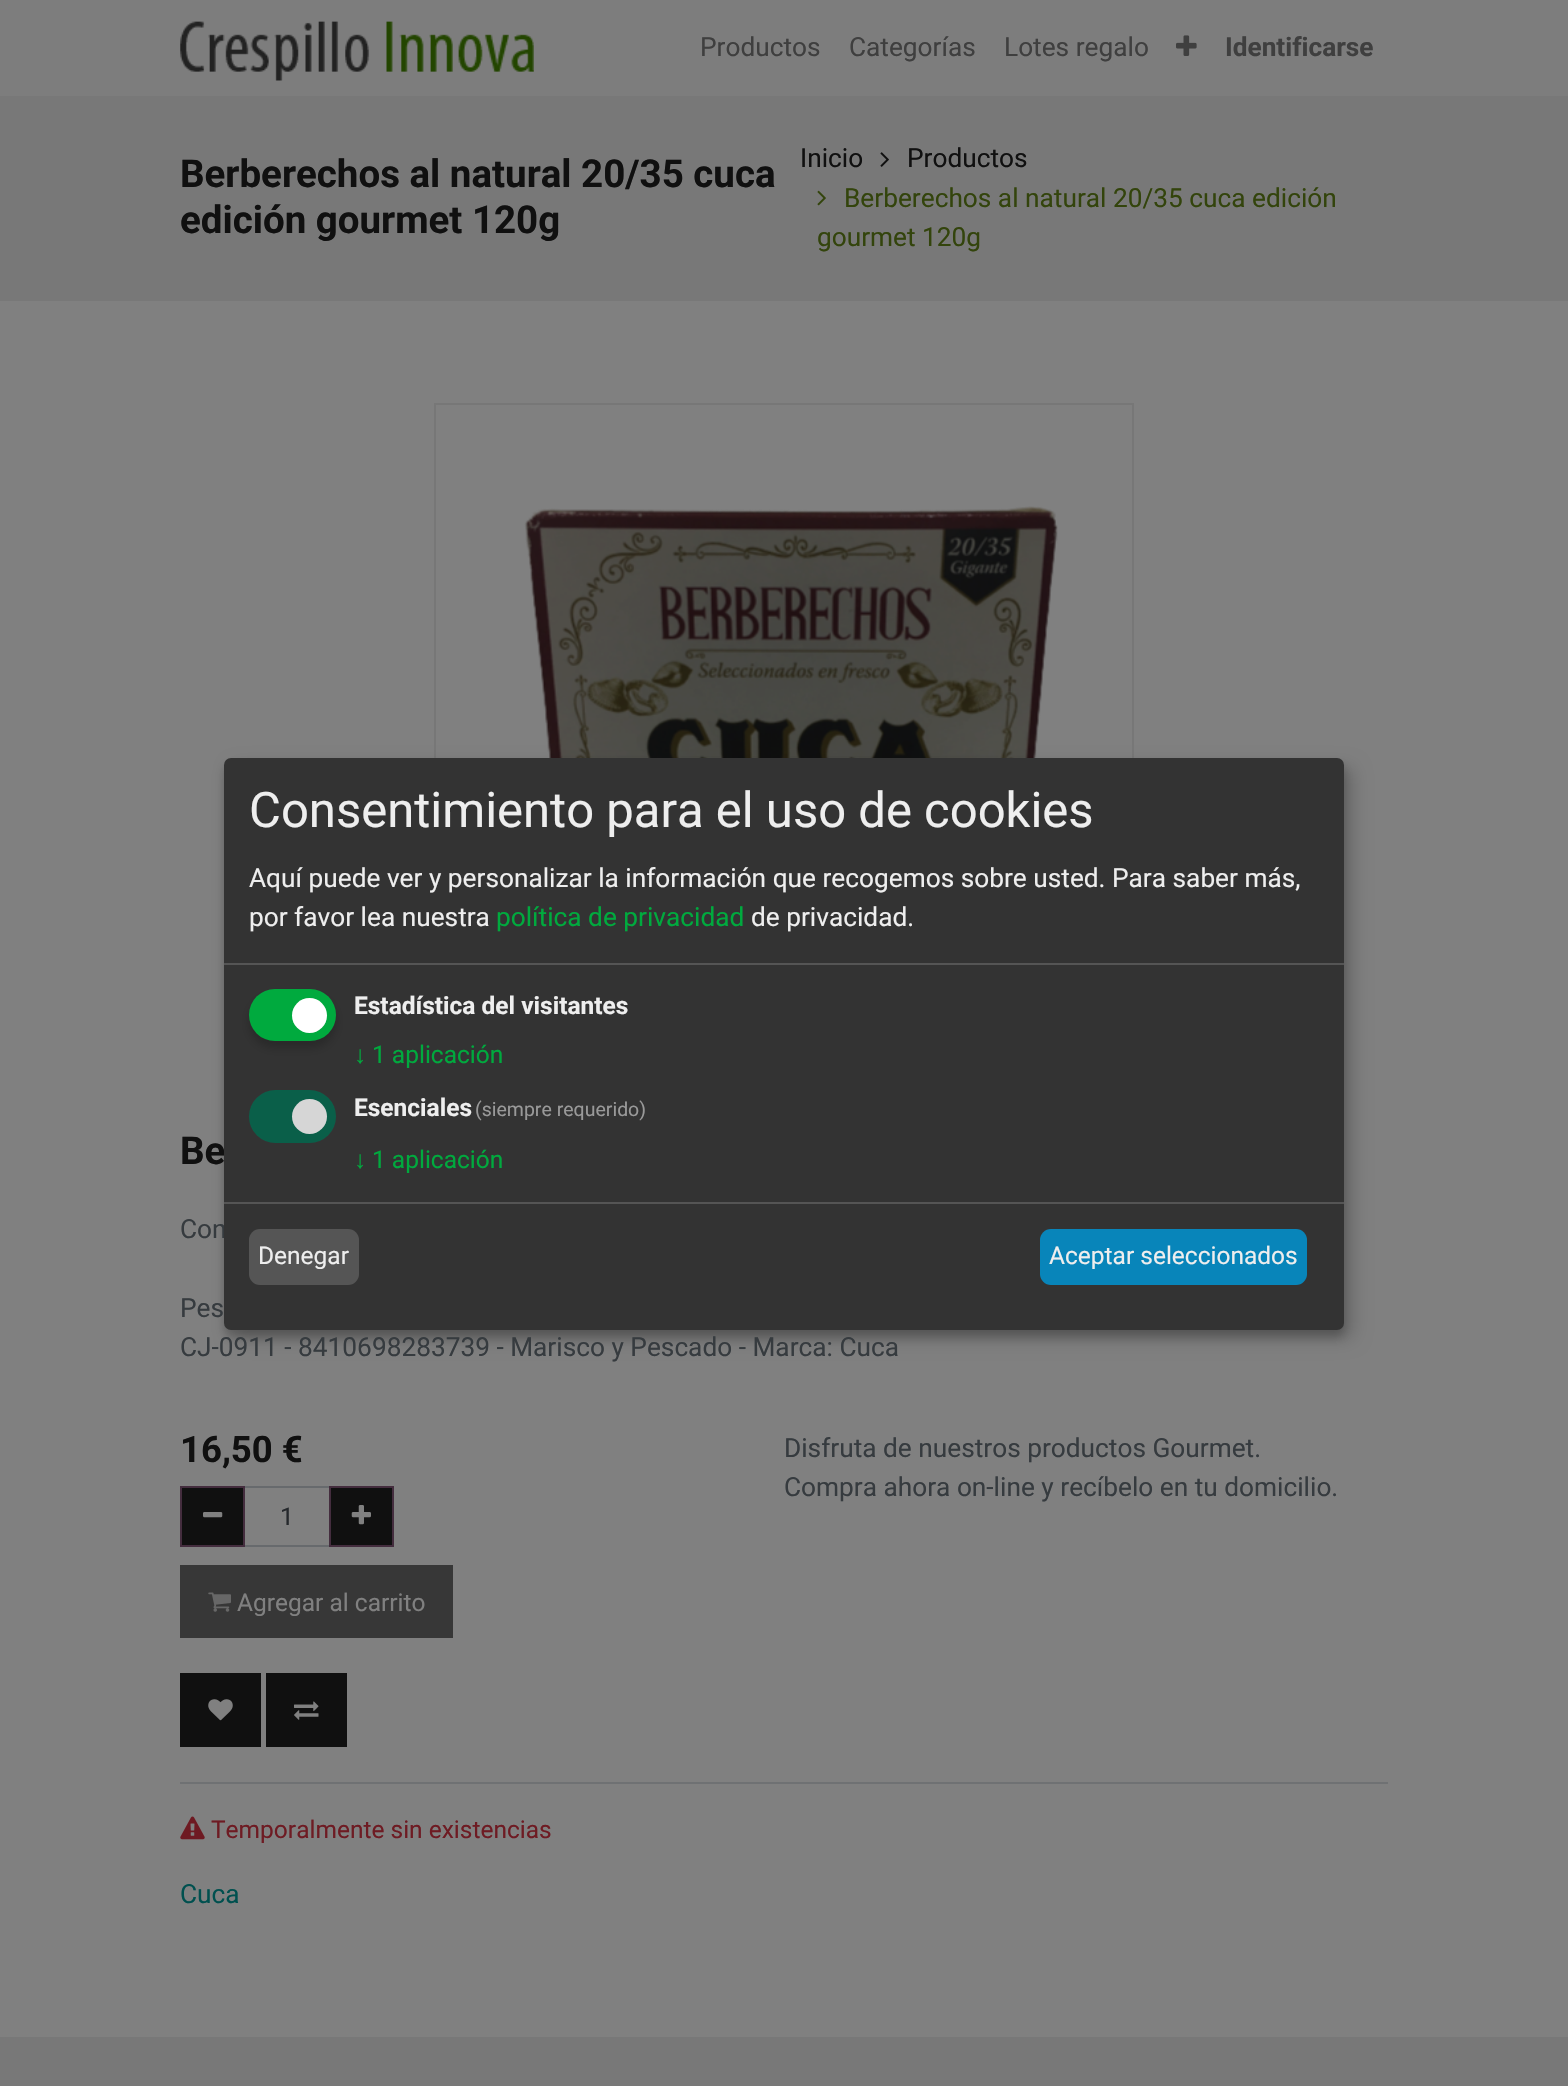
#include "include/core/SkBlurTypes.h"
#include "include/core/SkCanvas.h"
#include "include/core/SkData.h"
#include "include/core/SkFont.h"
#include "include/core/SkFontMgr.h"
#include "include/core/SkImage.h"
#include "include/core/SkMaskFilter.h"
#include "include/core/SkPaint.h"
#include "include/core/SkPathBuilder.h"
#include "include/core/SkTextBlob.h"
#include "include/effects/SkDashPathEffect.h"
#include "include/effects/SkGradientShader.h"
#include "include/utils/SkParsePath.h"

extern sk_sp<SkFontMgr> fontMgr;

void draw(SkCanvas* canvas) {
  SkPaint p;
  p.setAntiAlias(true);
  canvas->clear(SkColorSetRGB(128, 128, 128));
  p.setColor(SkColorSetRGB(125, 125, 125));
  canvas->drawRect(SkRect::MakeLTRB(0, 0, 1568, 96), p);
  canvas->drawImageRect(SkImages::DeferredFromEncodedData(SkData::MakeFromFileName("images/1.png")), SkRect::MakeLTRB(180, 21, 534, 81), SkSamplingOptions());
  canvas->drawImageRect(SkImages::DeferredFromEncodedData(SkData::MakeFromFileName("images/2.png")), SkRect::MakeLTRB(1176, 35, 1197, 56), SkSamplingOptions());
  p.setColor(SkColorSetRGB(120, 120, 120));
  canvas->drawRect(SkRect::MakeLTRB(0, 96, 1568, 301), p);
  canvas->drawImageRect(SkImages::DeferredFromEncodedData(SkData::MakeFromFileName("images/3.png")), SkRect::MakeLTRB(880, 152, 889, 167), SkSamplingOptions());
  canvas->drawImageRect(SkImages::DeferredFromEncodedData(SkData::MakeFromFileName("images/4.png")), SkRect::MakeLTRB(817, 190, 826, 206), SkSamplingOptions());
  p.setStyle(SkPaint::kStroke_Style);
  p.setStrokeWidth(2);
  p.setColor(SkColorSetRGB(119, 119, 119));
  canvas->drawRect(SkRect::MakeLTRB(435, 404, 1133, 1102), p);
  canvas->drawImageRect(SkImages::DeferredFromEncodedData(SkData::MakeFromFileName("images/5.png")), SkRect::MakeLTRB(524, 506, 1058, 758), SkSamplingOptions());
  p.setStyle(SkPaint::kFill_Style);
  p.setColor(SkColorSetRGB(111, 113, 115));
  canvas->drawRect(SkRect::MakeLTRB(180, 1782, 1388, 1784), p);
  p.setStyle(SkPaint::kStroke_Style);
  p.setColor(SkColorSetRGB(103, 106, 109));
  canvas->drawRect(SkRect::MakeLTRB(244, 1487, 330, 1546), p);
  p.setStyle(SkPaint::kFill_Style);
  p.setColor(SkColorSetRGB(16, 16, 16));
  canvas->drawRect(SkRect::MakeLTRB(181, 1487, 244, 1546), p);
  p.setStyle(SkPaint::kStroke_Style);
  p.setColor(SkColorSetRGB(68, 45, 62));
  canvas->drawRect(SkRect::MakeLTRB(181, 1487, 244, 1546), p);
  canvas->drawImageRect(SkImages::DeferredFromEncodedData(SkData::MakeFromFileName("images/6.png")), SkRect::MakeLTRB(203, 1512, 223, 1518), SkSamplingOptions());
  p.setStyle(SkPaint::kFill_Style);
  p.setColor(SkColorSetRGB(16, 16, 16));
  canvas->drawRect(SkRect::MakeLTRB(330, 1487, 393, 1546), p);
  p.setStyle(SkPaint::kStroke_Style);
  p.setColor(SkColorSetRGB(68, 45, 62));
  canvas->drawRect(SkRect::MakeLTRB(330, 1487, 393, 1546), p);
  canvas->drawImageRect(SkImages::DeferredFromEncodedData(SkData::MakeFromFileName("images/7.png")), SkRect::MakeLTRB(351, 1505, 371, 1525), SkSamplingOptions());
  p.setStyle(SkPaint::kFill_Style);
  p.setColor(SkColorSetRGB(55, 55, 55));
  canvas->drawRect(SkRect::MakeLTRB(180, 1565, 453, 1638), p);
  canvas->drawImageRect(SkImages::DeferredFromEncodedData(SkData::MakeFromFileName("images/8.png")), SkRect::MakeLTRB(208, 1592, 231, 1612), SkSamplingOptions());
  p.setColor(SkColorSetRGB(16, 16, 16));
  canvas->drawRect(SkRect::MakeLTRB(180, 1673, 261, 1747), p);
  canvas->drawImageRect(SkImages::DeferredFromEncodedData(SkData::MakeFromFileName("images/9.png")), SkRect::MakeLTRB(208, 1699, 233, 1721), SkSamplingOptions());
  canvas->drawRect(SkRect::MakeLTRB(266, 1673, 347, 1747), p);
  canvas->drawImageRect(SkImages::DeferredFromEncodedData(SkData::MakeFromFileName("images/10.png")), SkRect::MakeLTRB(294, 1701, 319, 1720), SkSamplingOptions());
  canvas->drawImageRect(SkImages::DeferredFromEncodedData(SkData::MakeFromFileName("images/11.png")), SkRect::MakeLTRB(180, 1816, 205, 1840), SkSamplingOptions());
  p.setColor(SkColorSetRGB(120, 120, 120));
  canvas->drawRect(SkRect::MakeLTRB(0, 2037, 1568, 2086), p);
  p.setColor(SkColorSetARGB(48, 0, 0, 0));
  p.setMaskFilter(SkMaskFilter::MakeBlur(kNormal_SkBlurStyle, 9));
  canvas->drawRoundRect(SkRect::MakeLTRB(233, 767, 1353, 1339), 7, 7, p);
  p.setMaskFilter(nullptr);
  p.setColor(SkColorSetARGB(51, 0, 0, 0));
  p.setMaskFilter(SkMaskFilter::MakeBlur(kNormal_SkBlurStyle, 5));
  canvas->drawRoundRect(SkRect::MakeLTRB(224, 765, 1344, 1337), 7, 7, p);
  p.setMaskFilter(nullptr);
  SkFont font1(fontMgr->matchFamilyStyle("Roboto", SkFontStyle::Normal()), 26.25f);
  font1.setSubpixel(true);
  p.setColor(SkColorSetRGB(63, 63, 63));
  canvas->drawString("Productos", 700, 56, font1, p);
  canvas->drawString("Categorías", 849, 56, font1, p);
  canvas->drawString("Lotes regalo", 1004, 56, font1, p);
  SkFont font2(fontMgr->matchFamilyStyle("Roboto", SkFontStyle::Bold()), 26.25f);
  font2.setSubpixel(true);
  canvas->drawString("Identificarse", 1225, 56, font2, p);
  SkFont font3(fontMgr->matchFamilyStyle("Roboto", SkFontStyle::Bold()), 38.5f);
  font3.setSubpixel(true);
  p.setColor(SkColorSetRGB(16, 16, 16));
  canvas->drawString("Berberechos al natural 20/35 cuca", 180, 187, font3, p);
  canvas->drawString("edición gourmet 120g", 180, 233, font3, p);
  canvas->drawString("Inicio", 800, 167, font1, p);
  canvas->drawString("Productos", 907, 167, font1, p);
  p.setColor(SkColorSetRGB(51, 68, 12));
  canvas->drawString("Berberechos al natural 20/35 cuca edición", 844, 207, font1, p);
  canvas->drawString("gourmet 120g", 817, 246, font1, p);
  p.setColor(SkColorSetRGB(16, 16, 16));
  canvas->drawString("Be", 180, 1164, font3, p);
  p.setColor(SkColorSetRGB(54, 59, 63));
  canvas->drawString("Con", 180, 1238, font1, p);
  canvas->drawString("Pes", 180, 1317, font1, p);
  canvas->drawString("CJ-0911 - 8410698283739 - Marisco y Pescado - Marca: Cuca", 180, 1356, font1, p);
  SkFont font4(fontMgr->matchFamilyStyle("Roboto", SkFontStyle::Bold()), 36.5f);
  font4.setSubpixel(true);
  p.setColor(SkColorSetRGB(16, 16, 16));
  canvas->drawString("16,50 €", 180, 1462, font4, p);
  SkFont font5(fontMgr->matchFamilyStyle("Roboto", SkFontStyle::Normal()), 24.5f);
  font5.setSubpixel(true);
  p.setColor(SkColorSetRGB(37, 40, 44));
  canvas->drawString("1", 280, 1525, font5, p);
  p.setColor(SkColorSetRGB(128, 128, 128));
  canvas->drawString("Agregar al carrito", 237, 1611, font5, p);
  p.setColor(SkColorSetRGB(54, 59, 63));
  canvas->drawString("Disfruta de nuestros productos Gourmet.", 784, 1457, font1, p);
  canvas->drawString("Compra ahora on-line y recíbelo en tu domicilio.", 784, 1496, font1, p);
  p.setColor(SkColorSetRGB(110, 27, 35));
  canvas->drawString("Temporalmente sin existencias", 211, 1838, font5, p);
  p.setColor(SkColorSetRGB(0, 80, 79));
  canvas->drawString("Cuca", 180, 1903, font1, p);
  p.setColor(SkColorSetRGB(51, 51, 51));
  canvas->drawRoundRect(SkRect::MakeLTRB(224, 758, 1344, 1330), 7, 7, p);
  p.setColor(SkColorSetRGB(85, 85, 85));
  canvas->drawRect(SkRect::MakeLTRB(224, 963, 1344, 965), p);
  SkFont font6(fontMgr->matchFamilyStyle("Roboto", SkFontStyle::Normal()), 49);
  font6.setSubpixel(true);
  p.setColor(SkColorSetRGB(238, 238, 238));
  canvas->drawString("Consentimiento para el uso de cookies", 249, 827, font6, p);
  canvas->drawString("Aquí puede ver y personalizar la información que recogemos sobre usted. Para saber más,", 249, 887, font1, p);
  canvas->drawString("por favor lea nuestra", 249, 926, font1, p);
  p.setColor(SkColorSetRGB(0, 170, 62));
  canvas->drawString("política de privacidad", 496, 926, font1, p);
  p.setColor(SkColorSetRGB(238, 238, 238));
  canvas->drawString("de privacidad.", 751, 926, font1, p);
  p.setColor(SkColorSetARGB(51, 0, 0, 0));
  p.setMaskFilter(SkMaskFilter::MakeBlur(kNormal_SkBlurStyle, 5));
  canvas->drawRoundRect(SkRect::MakeLTRB(249, 996, 336, 1048), 26, 26, p);
  p.setMaskFilter(nullptr);
  p.setColor(SkColorSetRGB(0, 170, 62));
  canvas->drawRoundRect(SkRect::MakeLTRB(249, 989, 336, 1041), 26, 26, p);
  p.setColor(SK_ColorWHITE);
  canvas->drawCircle(309.5f, 1015.5f, 17.5f, p);
  SkFont font7(fontMgr->matchFamilyStyle("Roboto", SkFontStyle::Bold()), 24.5f);
  font7.setSubpixel(true);
  p.setColor(SkColorSetRGB(238, 238, 238));
  canvas->drawString("Estadística del visitantes", 354, 1014, font7, p);
  SkFont font8(fontMgr->matchFamilyStyle("Liberation Sans", SkFontStyle::Normal()), 24.5f);
  font8.setSubpixel(true);
  p.setColor(SkColorSetRGB(0, 170, 62));
  canvas->drawString("↓", 354, 1063, font8, p);
  canvas->drawString("1 aplicación", 372, 1063, font5, p);
  p.setColor(SkColorSetRGB(10, 95, 73));
  canvas->drawRoundRect(SkRect::MakeLTRB(249, 1090, 336, 1143), 26.5f, 26.5f, p);
  p.setColor(SkColorSetRGB(214, 214, 214));
  canvas->drawCircle(309.5f, 1116.5f, 17.5f, p);
  p.setColor(SkColorSetRGB(238, 238, 238));
  canvas->drawString("Esenciales", 354, 1116, font7, p);
  SkFont font9(fontMgr->matchFamilyStyle("Roboto", SkFontStyle::Normal()), 19.5f);
  font9.setSubpixel(true);
  p.setColor(SkColorSetRGB(153, 153, 153));
  canvas->drawString("(siempre requerido)", 475, 1116, font9, p);
  p.setColor(SkColorSetRGB(0, 170, 62));
  canvas->drawString("↓", 354, 1168, font8, p);
  canvas->drawString("1 aplicación", 372, 1168, font5, p);
  p.setColor(SkColorSetRGB(85, 85, 85));
  canvas->drawRect(SkRect::MakeLTRB(224, 1202, 1344, 1204), p);
  canvas->drawRoundRect(SkRect::MakeLTRB(249, 1229, 359, 1285), 11, 11, p);
  p.setColor(SkColorSetRGB(238, 238, 238));
  canvas->drawString("Denegar", 258, 1264, font5, p);
  p.setColor(SkColorSetRGB(8, 133, 186));
  canvas->drawRoundRect(SkRect::MakeLTRB(1040, 1229, 1307, 1285), 11, 11, p);
  p.setColor(SkColorSetRGB(238, 238, 238));
  canvas->drawString("Aceptar seleccionados", 1049, 1264, font5, p);
}
